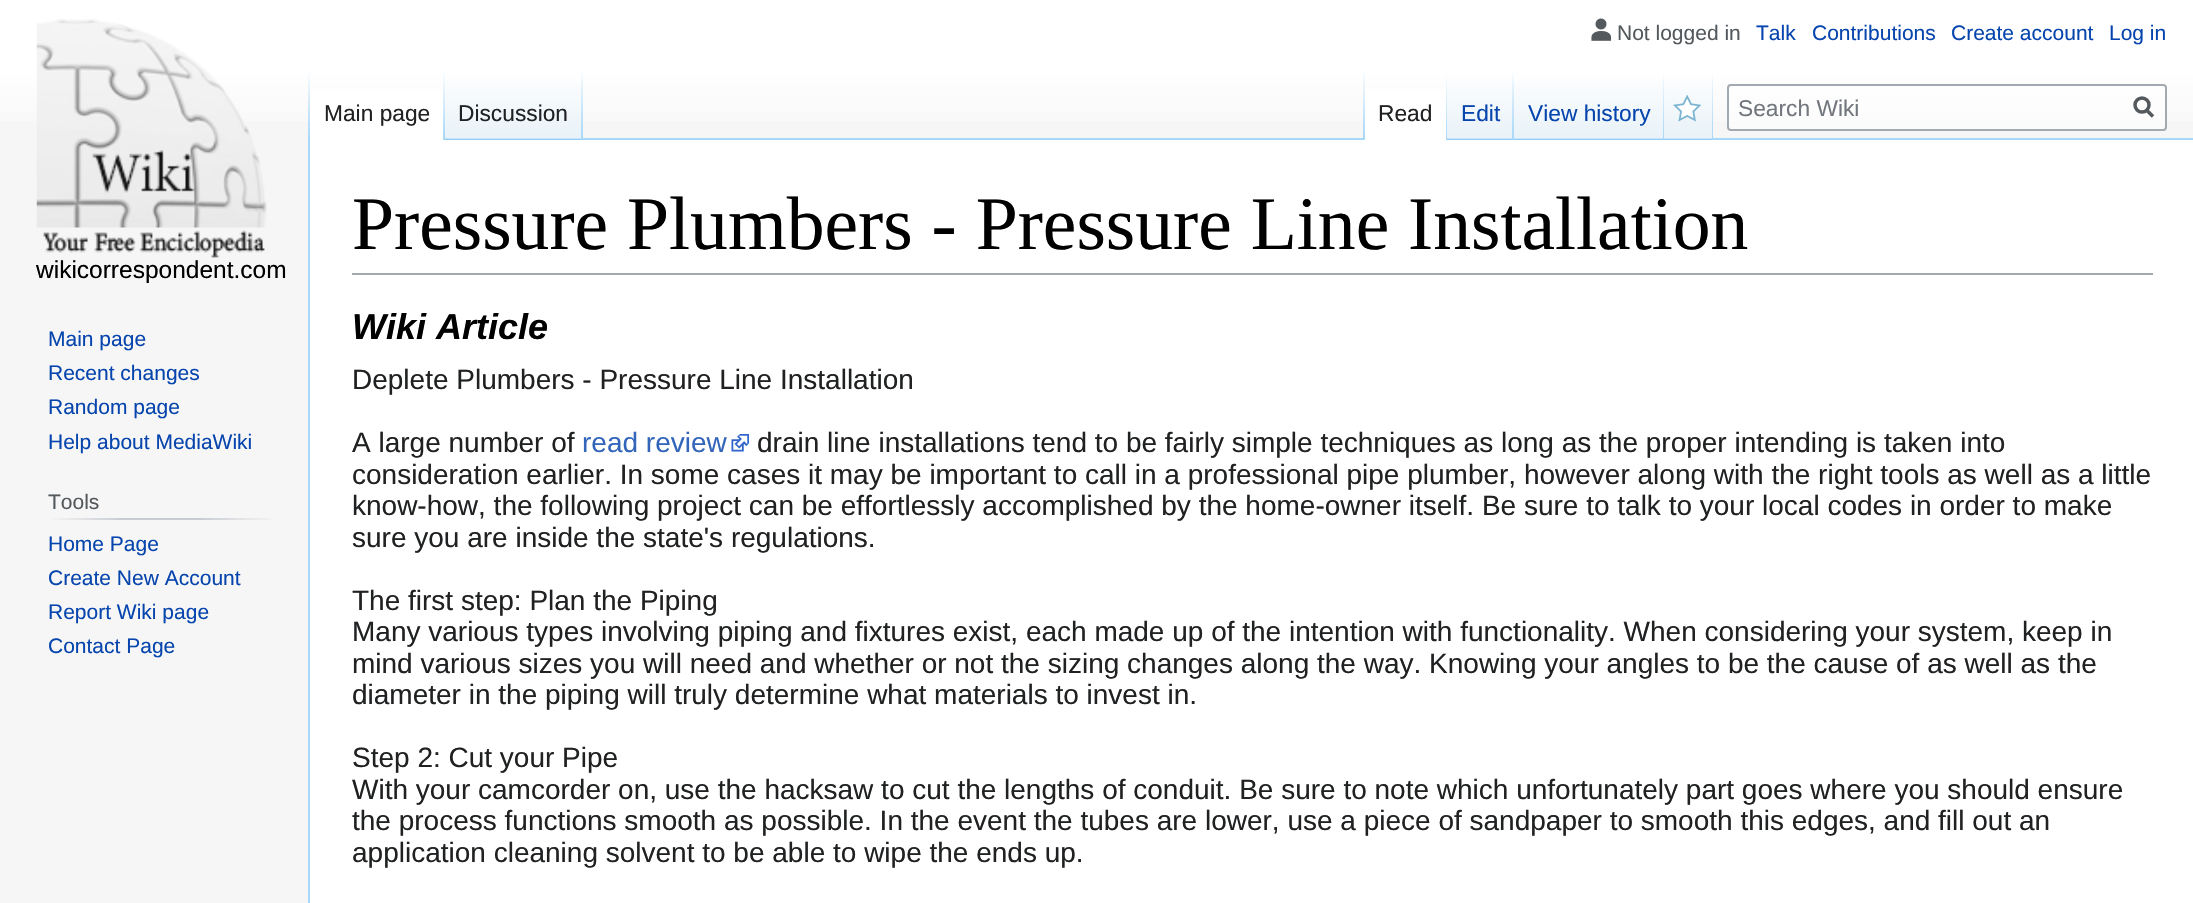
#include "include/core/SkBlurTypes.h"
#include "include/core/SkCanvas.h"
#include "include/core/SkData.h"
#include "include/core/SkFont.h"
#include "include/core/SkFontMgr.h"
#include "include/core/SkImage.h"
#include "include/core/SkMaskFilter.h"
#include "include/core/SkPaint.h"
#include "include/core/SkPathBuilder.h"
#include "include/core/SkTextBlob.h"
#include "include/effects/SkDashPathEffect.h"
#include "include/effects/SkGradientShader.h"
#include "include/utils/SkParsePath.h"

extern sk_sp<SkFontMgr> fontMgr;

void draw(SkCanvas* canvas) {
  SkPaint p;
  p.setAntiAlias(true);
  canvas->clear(SkColorSetRGB(246, 246, 246));
  {
    const SkColor colors[] = {SK_ColorWHITE, SkColorSetRGB(246, 246, 246)};
    const float stops[] = {0.5f, 1};
    const SkPoint ends[] = {{1097, 0}, {1097, 140}};
    p.setShader(SkGradientShader::MakeLinear(ends, colors, stops, 2, SkTileMode::kClamp));
    p.setAlpha(255);
  }
  canvas->drawRect(SkRect::MakeLTRB(0, 0, 2193, 121), p);
  canvas->drawImageRect(SkImages::DeferredFromEncodedData(SkData::MakeFromFileName("images/1.png")), SkRect::MakeLTRB(1591, 18, 1612, 41), SkSamplingOptions());
  p.setShader(nullptr);
  p.setColor(SkColorSetRGB(167, 215, 249));
  canvas->drawRect(SkRect::MakeLTRB(308, 138, 310, 903), p);
  {
    const SkColor colors[] = {SkColorSetARGB(0, 167, 215, 249), SkColorSetRGB(167, 215, 249)};
    const float stops[] = {0, 1};
    const SkPoint ends[] = {{309, 70}, {309, 140}};
    p.setShader(SkGradientShader::MakeLinear(ends, colors, stops, 2, SkTileMode::kClamp));
    p.setAlpha(255);
  }
  canvas->drawRect(SkRect::MakeLTRB(308, 70, 310, 140), p);
  p.setShader(nullptr);
  p.setColor(SK_ColorWHITE);
  canvas->drawRect(SkRect::MakeLTRB(310, 89, 443, 140), p);
  {
    const SkColor colors[] = {SK_ColorWHITE, SkColorSetRGB(167, 215, 249)};
    const float stops[] = {0, 1};
    const SkPoint ends[] = {{444, 70}, {444, 140}};
    p.setShader(SkGradientShader::MakeLinear(ends, colors, stops, 2, SkTileMode::kClamp));
    p.setAlpha(255);
  }
  canvas->drawRect(SkRect::MakeLTRB(443, 70, 445, 140), p);
  {
    const SkColor colors[] = {SkColorSetRGB(119, 193, 246), SkColorSetRGB(232, 242, 248), SK_ColorWHITE};
    const float stops[] = {0, 0.03f, 1};
    const SkPoint ends[] = {{514, 140}, {514, 70}};
    p.setShader(SkGradientShader::MakeLinear(ends, colors, stops, 3, SkTileMode::kClamp));
    p.setAlpha(255);
  }
  canvas->drawRect(SkRect::MakeLTRB(445, 80, 583, 140), p);
  {
    const SkColor colors[] = {SkColorSetARGB(0, 167, 215, 249), SkColorSetRGB(167, 215, 249)};
    const float stops[] = {0, 1};
    const SkPoint ends[] = {{582, 70}, {582, 140}};
    p.setShader(SkGradientShader::MakeLinear(ends, colors, stops, 2, SkTileMode::kClamp));
    p.setAlpha(255);
  }
  canvas->drawRect(SkRect::MakeLTRB(581, 70, 583, 140), p);
  p.setShader(nullptr);
  p.setColor(SkColorSetRGB(167, 215, 249));
  canvas->drawRect(SkRect::MakeLTRB(583, 138, 2193, 140), p);
  {
    const SkColor colors[] = {SkColorSetARGB(0, 167, 215, 249), SkColorSetRGB(167, 215, 249)};
    const float stops[] = {0, 1};
    const SkPoint ends[] = {{1364, 70}, {1364, 140}};
    p.setShader(SkGradientShader::MakeLinear(ends, colors, stops, 2, SkTileMode::kClamp));
    p.setAlpha(255);
  }
  canvas->drawRect(SkRect::MakeLTRB(1363, 70, 1365, 140), p);
  p.setShader(nullptr);
  p.setColor(SK_ColorWHITE);
  canvas->drawRect(SkRect::MakeLTRB(1365, 89, 1446, 140), p);
  {
    const SkColor colors[] = {SK_ColorWHITE, SkColorSetRGB(167, 215, 249)};
    const float stops[] = {0, 1};
    const SkPoint ends[] = {{1446, 70}, {1446, 140}};
    p.setShader(SkGradientShader::MakeLinear(ends, colors, stops, 2, SkTileMode::kClamp));
    p.setAlpha(255);
  }
  canvas->drawRect(SkRect::MakeLTRB(1446, 70, 1447, 140), p);
  {
    const SkColor colors[] = {SkColorSetRGB(119, 193, 246), SkColorSetRGB(232, 242, 248), SK_ColorWHITE};
    const float stops[] = {0, 0.03f, 1};
    const SkPoint ends[] = {{1481, 140}, {1481, 70}};
    p.setShader(SkGradientShader::MakeLinear(ends, colors, stops, 3, SkTileMode::kClamp));
    p.setAlpha(255);
  }
  canvas->drawRect(SkRect::MakeLTRB(1447, 80, 1514, 140), p);
  {
    const SkColor colors[] = {SkColorSetARGB(0, 167, 215, 249), SkColorSetRGB(167, 215, 249)};
    const float stops[] = {0, 1};
    const SkPoint ends[] = {{1513, 70}, {1513, 140}};
    p.setShader(SkGradientShader::MakeLinear(ends, colors, stops, 2, SkTileMode::kClamp));
    p.setAlpha(255);
  }
  canvas->drawRect(SkRect::MakeLTRB(1512, 70, 1514, 140), p);
  {
    const SkColor colors[] = {SkColorSetRGB(119, 193, 246), SkColorSetRGB(232, 242, 248), SK_ColorWHITE};
    const float stops[] = {0, 0.03f, 1};
    const SkPoint ends[] = {{1589, 140}, {1589, 70}};
    p.setShader(SkGradientShader::MakeLinear(ends, colors, stops, 3, SkTileMode::kClamp));
    p.setAlpha(255);
  }
  canvas->drawRect(SkRect::MakeLTRB(1514, 80, 1664, 140), p);
  {
    const SkColor colors[] = {SkColorSetARGB(0, 167, 215, 249), SkColorSetRGB(167, 215, 249)};
    const float stops[] = {0, 1};
    const SkPoint ends[] = {{1663, 70}, {1663, 140}};
    p.setShader(SkGradientShader::MakeLinear(ends, colors, stops, 2, SkTileMode::kClamp));
    p.setAlpha(255);
  }
  canvas->drawRect(SkRect::MakeLTRB(1663, 70, 1664, 140), p);
  {
    const SkColor colors[] = {SkColorSetRGB(119, 193, 246), SkColorSetRGB(232, 242, 248), SK_ColorWHITE};
    const float stops[] = {0, 0.03f, 1};
    const SkPoint ends[] = {{1689, 140}, {1689, 70}};
    p.setShader(SkGradientShader::MakeLinear(ends, colors, stops, 3, SkTileMode::kClamp));
    p.setAlpha(255);
  }
  canvas->drawRect(SkRect::MakeLTRB(1664, 80, 1713, 140), p);
  {
    const SkColor colors[] = {SkColorSetARGB(0, 167, 215, 249), SkColorSetRGB(167, 215, 249)};
    const float stops[] = {0, 1};
    const SkPoint ends[] = {{1712, 70}, {1712, 140}};
    p.setShader(SkGradientShader::MakeLinear(ends, colors, stops, 2, SkTileMode::kClamp));
    p.setAlpha(255);
  }
  canvas->drawRect(SkRect::MakeLTRB(1712, 70, 1713, 140), p);
  canvas->drawImageRect(SkImages::DeferredFromEncodedData(SkData::MakeFromFileName("images/2.png")), SkRect::MakeLTRB(1673, 95, 1701, 122), SkSamplingOptions());
  p.setShader(nullptr);
  p.setColor(SkColorSetARGB(128, 255, 255, 255));
  canvas->drawRoundRect(SkRect::MakeLTRB(1728, 85, 2166, 130), 3, 3, p);
  p.setStyle(SkPaint::kStroke_Style);
  p.setStrokeWidth(2);
  p.setColor(SkColorSetRGB(162, 169, 177));
  canvas->drawRoundRect(SkRect::MakeLTRB(1728, 85, 2166, 130), 3, 3, p);
  p.setStrokeWidth(3.5f);
  p.setColor(SkColorSetRGB(84, 89, 93));
  canvas->drawPath(SkPathBuilder().moveTo(2153, 116.5f).lineTo(2146, 109.5f).detach(), p);
  canvas->drawCircle(2142, 105, 7, p);
  canvas->drawImageRect(SkImages::DeferredFromEncodedData(SkData::MakeFromFileName("images/3.png")), SkRect::MakeLTRB(36, 19, 267, 258), SkSamplingOptions());
  p.setStyle(SkPaint::kFill_Style);
  {
    const SkColor colors[] = {SkColorSetRGB(246, 246, 246), SkColorSetRGB(200, 204, 209), SkColorSetRGB(200, 204, 209), SkColorSetRGB(246, 246, 246)};
    const float stops[] = {0, 0.33f, 0.66f, 1};
    const SkPoint ends[] = {{47, 519}, {277, 519}};
    p.setShader(SkGradientShader::MakeLinear(ends, colors, stops, 4, SkTileMode::kClamp));
    p.setAlpha(255);
  }
  canvas->drawRect(SkRect::MakeLTRB(47, 518, 277, 520), p);
  p.setShader(nullptr);
  p.setColor(SK_ColorWHITE);
  canvas->drawRect(SkRect::MakeLTRB(310, 140, 2193, 903), p);
  p.setColor(SkColorSetRGB(162, 169, 177));
  canvas->drawRect(SkRect::MakeLTRB(352, 273, 2153, 275), p);
  canvas->drawImageRect(SkImages::DeferredFromEncodedData(SkData::MakeFromFileName("images/4.png")), SkRect::MakeLTRB(731, 434, 749, 452), SkSamplingOptions());
  SkFont font1(fontMgr->matchFamilyStyle("Liberation Sans", SkFontStyle::Normal()), 21);
  font1.setSubpixel(true);
  p.setColor(SkColorSetRGB(84, 89, 93));
  canvas->drawString("Not logged in", 1617, 40, font1, p);
  p.setColor(SkColorSetRGB(6, 69, 173));
  canvas->drawString("Talk", 1756, 40, font1, p);
  canvas->drawString("Contributions", 1812, 40, font1, p);
  canvas->drawString("Create account", 1951, 40, font1, p);
  canvas->drawString("Log in", 2109, 40, font1, p);
  SkFont font2(fontMgr->matchFamilyStyle("Liberation Sans", SkFontStyle::Normal()), 22.75f);
  font2.setSubpixel(true);
  p.setColor(SkColorSetRGB(32, 33, 34));
  canvas->drawString("Main page", 324, 121, font2, p);
  canvas->drawString("Discussion", 458, 121, font2, p);
  canvas->drawString("Read", 1378, 121, font2, p);
  p.setColor(SkColorSetRGB(6, 69, 173));
  canvas->drawString("Edit", 1461, 121, font2, p);
  canvas->drawString("View history", 1528, 121, font2, p);
  p.setColor(SkColorSetRGB(114, 119, 125));
  canvas->drawString("Search Wiki", 1738, 116, font2, p);
  SkFont font3(fontMgr->matchFamilyStyle("Liberation Sans", SkFontStyle::Normal()), 24.5f);
  font3.setSubpixel(true);
  p.setColor(SK_ColorBLACK);
  canvas->drawString("wikicorrespondent.com", 36, 278, font3, p);
  p.setColor(SkColorSetRGB(6, 69, 173));
  canvas->drawString("Main page", 48, 346, font1, p);
  canvas->drawString("Recent changes", 48, 380, font1, p);
  canvas->drawString("Random page", 48, 414, font1, p);
  canvas->drawString("Help about MediaWiki", 48, 449, font1, p);
  p.setColor(SkColorSetRGB(84, 89, 93));
  canvas->drawString("Tools", 48, 509, font1, p);
  p.setColor(SkColorSetRGB(6, 69, 173));
  canvas->drawString("Home Page", 48, 551, font1, p);
  canvas->drawString("Create New Account", 48, 585, font1, p);
  canvas->drawString("Report Wiki page", 48, 619, font1, p);
  canvas->drawString("Contact Page", 48, 653, font1, p);
  SkFont font4(fontMgr->matchFamilyStyle("Liberation Serif", SkFontStyle::Normal()), 75.6f);
  font4.setSubpixel(true);
  p.setColor(SK_ColorBLACK);
  canvas->drawString("Pressure Plumbers - Pressure Line Installation", 352, 249, font4, p);
  SkFont font5(fontMgr->matchFamilyStyle("Liberation Sans", SkFontStyle::BoldItalic()), 36);
  font5.setSubpixel(true);
  canvas->drawString("Wiki Article", 352, 339, font5, p);
  SkFont font6(fontMgr->matchFamilyStyle("Liberation Sans", SkFontStyle::Normal()), 28);
  font6.setSubpixel(true);
  p.setColor(SkColorSetRGB(32, 33, 34));
  canvas->drawString("Deplete Plumbers - Pressure Line Installation", 352, 389, font6, p);
  canvas->drawString("A large number of", 352, 452, font6, p);
  p.setColor(SkColorSetRGB(51, 102, 187));
  canvas->drawString("read review", 582, 452, font6, p);
  p.setColor(SkColorSetRGB(32, 33, 34));
  canvas->drawString("drain line installations tend to be fairly simple techniques as long as the proper intending is taken into", 757, 452, font6, p);
  canvas->drawString("consideration earlier. In some cases it may be important to call in a professional pipe plumber, however along with the right tools as well as a little", 352, 484, font6, p);
  canvas->drawString("know-how, the following project can be effortlessly accomplished by the home-owner itself. Be sure to talk to your local codes in order to make", 352, 515, font6, p);
  canvas->drawString("sure you are inside the state's regulations.", 352, 547, font6, p);
  canvas->drawString("The first step: Plan the Piping", 352, 610, font6, p);
  canvas->drawString("Many various types involving piping and fixtures exist, each made up of the intention with functionality. When considering your system, keep in", 352, 641, font6, p);
  canvas->drawString("mind various sizes you will need and whether or not the sizing changes along the way. Knowing your angles to be the cause of as well as the", 352, 673, font6, p);
  canvas->drawString("diameter in the piping will truly determine what materials to invest in.", 352, 704, font6, p);
  canvas->drawString("Step 2: Cut your Pipe", 352, 767, font6, p);
  canvas->drawString("With your camcorder on, use the hacksaw to cut the lengths of conduit. Be sure to note which unfortunately part goes where you should ensure", 352, 799, font6, p);
  canvas->drawString("the process functions smooth as possible. In the event the tubes are lower, use a piece of sandpaper to smooth this edges, and fill out an", 352, 830, font6, p);
  canvas->drawString("application cleaning solvent to be able to wipe the ends up.", 352, 862, font6, p);
}
